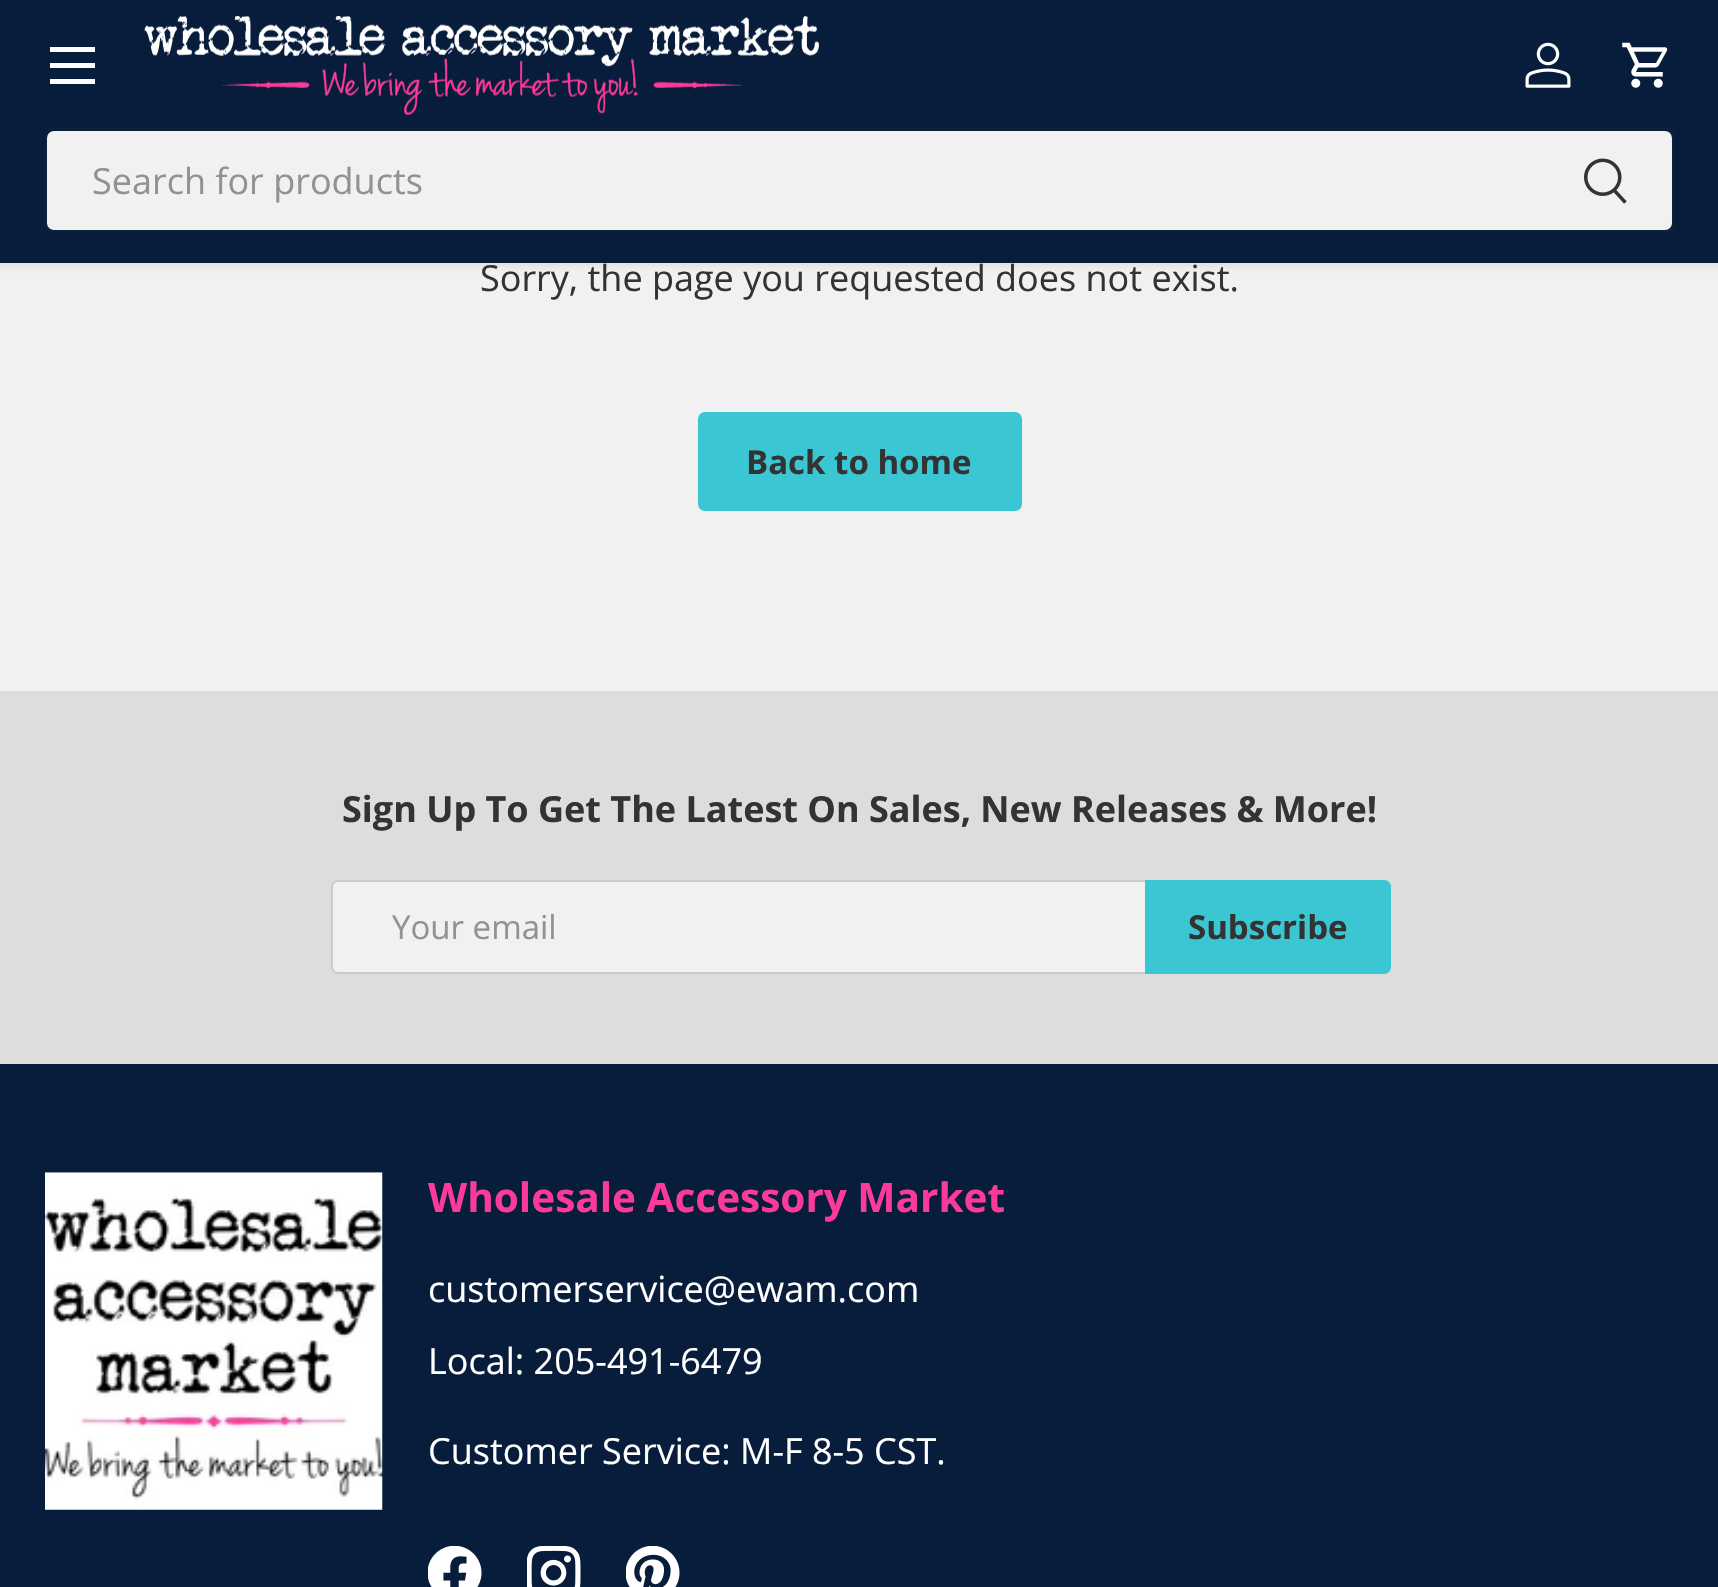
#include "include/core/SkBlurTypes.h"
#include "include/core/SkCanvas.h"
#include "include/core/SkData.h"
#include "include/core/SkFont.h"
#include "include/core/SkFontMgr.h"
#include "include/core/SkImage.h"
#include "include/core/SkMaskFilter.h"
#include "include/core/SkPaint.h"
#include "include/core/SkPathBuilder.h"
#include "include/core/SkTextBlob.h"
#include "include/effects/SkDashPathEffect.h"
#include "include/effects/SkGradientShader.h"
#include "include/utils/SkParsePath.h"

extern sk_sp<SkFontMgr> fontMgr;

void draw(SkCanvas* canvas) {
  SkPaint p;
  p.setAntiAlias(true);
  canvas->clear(SkColorSetRGB(241, 241, 241));
  p.setColor(SkColorSetARGB(20, 0, 0, 0));
  p.setMaskFilter(SkMaskFilter::MakeBlur(kNormal_SkBlurStyle, 3.5f));
  canvas->drawRect(SkRect::MakeLTRB(-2, -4, 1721, 266), p);
  p.setMaskFilter(nullptr);
  p.setColor(SkColorSetRGB(7, 29, 59));
  canvas->drawRect(SkRect::MakeLTRB(0, 0, 1718, 261), p);
  p.setColor(SK_ColorWHITE);
  canvas->drawRect(SkRect::MakeLTRB(50, 47, 95, 52), p);
  canvas->drawRect(SkRect::MakeLTRB(50, 79, 95, 84), p);
  canvas->drawRect(SkRect::MakeLTRB(50, 63, 95, 68), p);
  canvas->drawImageRect(SkImages::DeferredFromEncodedData(SkData::MakeFromFileName("images/1.png")), SkRect::MakeLTRB(144, 16, 819, 115), SkSamplingOptions());
  canvas->drawImageRect(SkImages::DeferredFromEncodedData(SkData::MakeFromFileName("images/2.png")), SkRect::MakeLTRB(1525, 42, 1571, 88), SkSamplingOptions());
  canvas->drawImageRect(SkImages::DeferredFromEncodedData(SkData::MakeFromFileName("images/3.png")), SkRect::MakeLTRB(1622, 42, 1668, 88), SkSamplingOptions());
  p.setStyle(SkPaint::kStroke_Style);
  p.setStrokeWidth(2);
  p.setColor(SkColorSetRGB(14, 32, 58));
  canvas->drawRoundRect(SkRect::MakeLTRB(46, 129, 1673, 231), 6, 6, p);
  p.setStyle(SkPaint::kFill_Style);
  p.setColor(SkColorSetRGB(241, 241, 241));
  canvas->drawRoundRect(SkRect::MakeLTRB(47, 131, 1672, 230), 7, 7, p);
  canvas->drawImageRect(SkImages::DeferredFromEncodedData(SkData::MakeFromFileName("images/4.png")), SkRect::MakeLTRB(1584, 158, 1627, 204), SkSamplingOptions());
  p.setColor(SkColorSetRGB(11, 30, 55));
  canvas->drawRect(SkRect::MakeLTRB(0, 261, 1718, 263), p);
  {
    const SkColor colors[] = {SkColorSetRGB(63, 186, 196), SkColorSetRGB(58, 199, 211), SkColorSetRGB(58, 199, 211)};
    const float stops[] = {0.6f, 0.6f, 1};
    const SkPoint ends[] = {{66, 344}, {1005, 578}};
    p.setShader(SkGradientShader::MakeLinear(ends, colors, stops, 3, SkTileMode::kClamp));
    p.setAlpha(255);
  }
  canvas->drawRoundRect(SkRect::MakeLTRB(698, 412, 1022, 511), 7, 7, p);
  p.setShader(nullptr);
  p.setColor(SkColorSetRGB(221, 221, 221));
  canvas->drawRect(SkRect::MakeLTRB(0, 691, 1718, 1064), p);
  p.setColor(SkColorSetRGB(241, 241, 241));
  canvas->drawRoundRect(SkRect::MakeLTRB(331, 880, 1388, 974), 7, 7, p);
  p.setStyle(SkPaint::kStroke_Style);
  p.setColor(SkColorSetARGB(51, 51, 51, 51));
  canvas->drawRoundRect(SkRect::MakeLTRB(332, 881, 1387, 973), 6, 6, p);
  p.setStyle(SkPaint::kFill_Style);
  {
    const SkColor colors[] = {SkColorSetRGB(63, 186, 196), SkColorSetRGB(58, 199, 211), SkColorSetRGB(58, 199, 211)};
    const float stops[] = {0.6f, 0.6f, 1};
    const SkPoint ends[] = {{665, 838}, {1380, 1016}};
    p.setShader(SkGradientShader::MakeLinear(ends, colors, stops, 3, SkTileMode::kClamp));
    p.setAlpha(255);
  }
  canvas->drawPath(SkPathBuilder().moveTo(1145, 880).lineTo(1384, 880).cubicTo(1388, 880, 1391, 883, 1391, 887).lineTo(1391, 967).cubicTo(1391, 971, 1388, 974, 1384, 974).lineTo(1145, 974).close().detach(), p);
  p.setShader(nullptr);
  p.setColor(SkColorSetRGB(7, 29, 59));
  canvas->drawRect(SkRect::MakeLTRB(0, 1064, 1718, 1587), p);
  canvas->drawImageRect(SkImages::DeferredFromEncodedData(SkData::MakeFromFileName("images/5.png")), SkRect::MakeLTRB(45, 1172, 383, 1510), SkSamplingOptions());
  canvas->drawImageRect(SkImages::DeferredFromEncodedData(SkData::MakeFromFileName("images/6.png")), SkRect::MakeLTRB(428, 1546, 482, 1587), SkSamplingOptions());
  canvas->drawImageRect(SkImages::DeferredFromEncodedData(SkData::MakeFromFileName("images/7.png")), SkRect::MakeLTRB(527, 1546, 581, 1587), SkSamplingOptions());
  canvas->drawImageRect(SkImages::DeferredFromEncodedData(SkData::MakeFromFileName("images/8.png")), SkRect::MakeLTRB(626, 1546, 680, 1587), SkSamplingOptions());
  SkFont font1(fontMgr->matchFamilyStyle("Open Sans", SkFontStyle::Normal()), 36);
  font1.setSubpixel(true);
  p.setColor(SkColorSetRGB(146, 146, 146));
  canvas->drawString("Search for products", 92, 194, font1, p);
  p.setColor(SkColorSetRGB(51, 51, 51));
  canvas->drawString("Sorry, the page you requested does not exist.", 480, 291, font1, p);
  SkFont font2(fontMgr->matchFamilyStyle("Open Sans", SkFontStyle::Bold()), 33);
  font2.setSubpixel(true);
  canvas->drawString("Back to home", 746, 474, font2, p);
  SkFont font3(fontMgr->matchFamilyStyle("Open Sans", SkFontStyle::Bold()), 36);
  font3.setSubpixel(true);
  canvas->drawString("Sign Up To Get The Latest On Sales, New Releases & More!", 342, 822, font3, p);
  SkFont font4(fontMgr->matchFamilyStyle("Open Sans", SkFontStyle::Normal()), 33);
  font4.setSubpixel(true);
  p.setColor(SkColorSetRGB(146, 146, 146));
  canvas->drawString("Your email", 392, 939, font4, p);
  p.setColor(SkColorSetRGB(51, 51, 51));
  canvas->drawString("Subscribe", 1188, 939, font2, p);
  SkFont font5(fontMgr->matchFamilyStyle("Open Sans", SkFontStyle::Bold()), 40.5f);
  font5.setSubpixel(true);
  p.setColor(SkColorSetRGB(252, 58, 153));
  canvas->drawString("Wholesale Accessory Market", 428, 1212, font5, p);
  p.setColor(SK_ColorWHITE);
  canvas->drawString("customerservice@ewam.com", 428, 1302, font1, p);
  canvas->drawString("Local: 205-491-6479", 428, 1374, font1, p);
  canvas->drawString("Customer Service: M-F 8-5 CST.", 428, 1464, font1, p);
}
